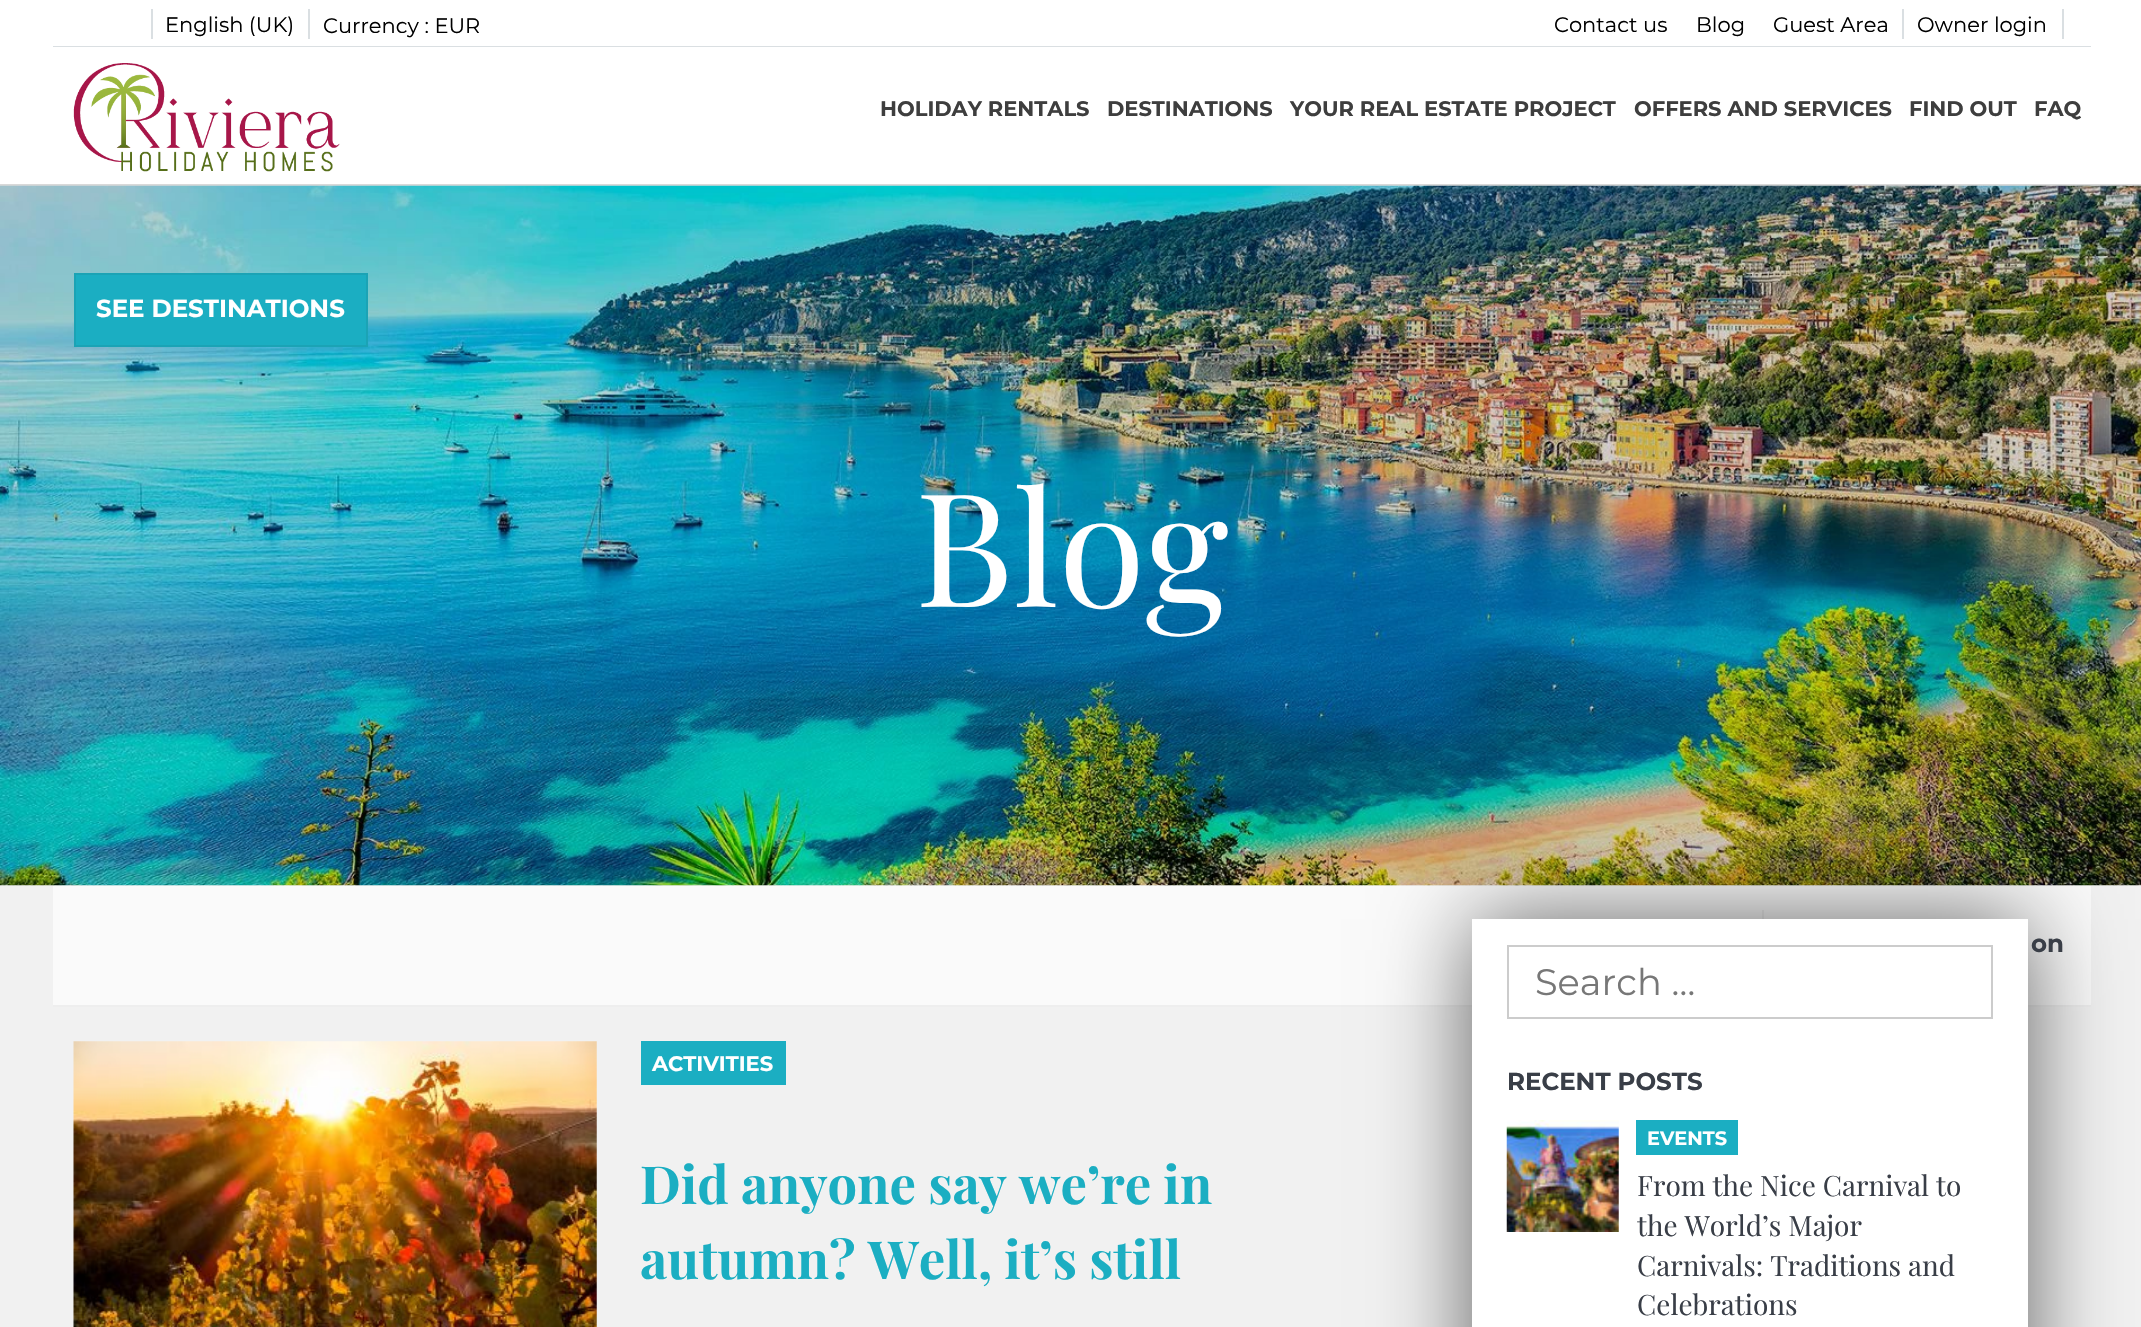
#include "include/core/SkBlurTypes.h"
#include "include/core/SkCanvas.h"
#include "include/core/SkData.h"
#include "include/core/SkFont.h"
#include "include/core/SkFontMgr.h"
#include "include/core/SkImage.h"
#include "include/core/SkMaskFilter.h"
#include "include/core/SkPaint.h"
#include "include/core/SkPathBuilder.h"
#include "include/core/SkTextBlob.h"
#include "include/effects/SkDashPathEffect.h"
#include "include/effects/SkGradientShader.h"
#include "include/utils/SkParsePath.h"

extern sk_sp<SkFontMgr> fontMgr;

void draw(SkCanvas* canvas) {
  SkPaint p;
  p.setAntiAlias(true);
  canvas->clear(SkColorSetRGB(241, 241, 241));
  p.setColor(SK_ColorWHITE);
  canvas->drawRect(SkRect::MakeLTRB(0, 0, 2141, 184), p);
  p.setColor(SkColorSetRGB(218, 223, 226));
  canvas->drawRect(SkRect::MakeLTRB(53, 46, 2091, 47), p);
  canvas->drawRect(SkRect::MakeLTRB(151, 9, 153, 39), p);
  canvas->drawRect(SkRect::MakeLTRB(308, 9, 310, 39), p);
  canvas->drawRect(SkRect::MakeLTRB(1902, 9, 1904, 39), p);
  canvas->drawRect(SkRect::MakeLTRB(2062, 9, 2064, 39), p);
  p.setColor(SkColorSetRGB(217, 217, 217));
  canvas->drawRect(SkRect::MakeLTRB(0, 184, 2141, 186), p);
  canvas->drawImageRect(SkImages::DeferredFromEncodedData(SkData::MakeFromFileName("images/1.png")), SkRect::MakeLTRB(73, 63, 340, 172), SkSamplingOptions());
  canvas->drawImageRect(SkImages::DeferredFromEncodedData(SkData::MakeFromFileName("images/2.png")), SkRect::MakeLTRB(0, 185, 2141, 886), SkSamplingOptions());
  p.setColor(SkColorSetRGB(27, 174, 194));
  canvas->drawRect(SkRect::MakeLTRB(75, 274, 367, 346), p);
  p.setStyle(SkPaint::kStroke_Style);
  p.setStrokeWidth(2);
  p.setColor(SkColorSetRGB(27, 163, 181));
  canvas->drawRect(SkRect::MakeLTRB(75, 274, 367, 346), p);
  p.setStyle(SkPaint::kFill_Style);
  p.setColor(SkColorSetRGB(250, 250, 250));
  canvas->drawRect(SkRect::MakeLTRB(53, 886, 2091, 1005), p);
  p.setColor(SkColorSetRGB(238, 238, 238));
  canvas->drawRect(SkRect::MakeLTRB(53, 1005, 2091, 1007), p);
  canvas->drawRect(SkRect::MakeLTRB(1762, 910, 1764, 919), p);
  canvas->drawImageRect(SkImages::DeferredFromEncodedData(SkData::MakeFromFileName("images/3.png")), SkRect::MakeLTRB(73, 1041, 597, 1327), SkSamplingOptions());
  p.setColor(SkColorSetRGB(27, 174, 194));
  canvas->drawRect(SkRect::MakeLTRB(641, 1041, 786, 1085), p);
  p.setColor(SkColorSetARGB(153, 0, 0, 0));
  p.setMaskFilter(SkMaskFilter::MakeBlur(kNormal_SkBlurStyle, 44));
  canvas->drawRect(SkRect::MakeLTRB(1472, 919, 2028, 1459), p);
  p.setMaskFilter(nullptr);
  p.setColor(SK_ColorWHITE);
  canvas->drawRect(SkRect::MakeLTRB(1472, 919, 2028, 1327), p);
  p.setStyle(SkPaint::kStroke_Style);
  p.setColor(SkColorSetRGB(204, 204, 204));
  canvas->drawRect(SkRect::MakeLTRB(1508, 946, 1992, 1018), p);
  canvas->drawImageRect(SkImages::DeferredFromEncodedData(SkData::MakeFromFileName("images/4.png")), SkRect::MakeLTRB(1506, 1120, 1619, 1232), SkSamplingOptions());
  p.setStyle(SkPaint::kFill_Style);
  p.setColor(SkColorSetRGB(27, 174, 194));
  canvas->drawRect(SkRect::MakeLTRB(1636, 1120, 1738, 1155), p);
  SkFont font1(fontMgr->matchFamilyStyle("Montserrat", SkFontStyle::Normal()), 21);
  font1.setSubpixel(true);
  p.setColor(SK_ColorBLACK);
  canvas->drawString("English (UK)", 165, 32, font1, p);
  canvas->drawString("Currency : EUR", 323, 33, font1, p);
  canvas->drawString("Contact us", 1554, 32, font1, p);
  canvas->drawString("Blog", 1696, 32, font1, p);
  canvas->drawString("Guest Area", 1773, 32, font1, p);
  canvas->drawString("Owner login", 1917, 32, font1, p);
  SkFont font2(fontMgr->matchFamilyStyle("Montserrat", SkFontStyle::Bold()), 21);
  font2.setSubpixel(true);
  p.setColor(SkColorSetRGB(62, 62, 62));
  canvas->drawString("HOLIDAY RENTALS", 880, 116, font2, p);
  canvas->drawString("DESTINATIONS", 1107, 116, font2, p);
  canvas->drawString("YOUR REAL ESTATE PROJECT", 1290, 116, font2, p);
  canvas->drawString("OFFERS AND SERVICES", 1634, 116, font2, p);
  canvas->drawString("FIND OUT", 1909, 116, font2, p);
  canvas->drawString("FAQ", 2034, 116, font2, p);
  SkFont font3(fontMgr->matchFamilyStyle("Montserrat", SkFontStyle::Bold()), 24.5f);
  font3.setSubpixel(true);
  p.setColor(SK_ColorWHITE);
  canvas->drawString("SEE DESTINATIONS", 96, 317, font3, p);
  SkFont font4(fontMgr->matchFamilyStyle("Playfair Display", SkFontStyle::Normal()), 158);
  font4.setSubpixel(true);
  canvas->drawString("Blog", 915, 607, font4, p);
  p.setColor(SkColorSetRGB(57, 62, 71));
  canvas->drawString("on", 2031, 952, font3, p);
  p.setColor(SK_ColorWHITE);
  canvas->drawString("ACTIVITIES", 652, 1071, font2, p);
  SkFont font5(fontMgr->matchFamilyStyle("Playfair Display", SkFontStyle::Bold()), 52.5f);
  font5.setSubpixel(true);
  p.setColor(SkColorSetRGB(27, 174, 194));
  canvas->drawString("Did anyone say we’re in", 640, 1204, font5, p);
  canvas->drawString("autumn? Well, it’s still", 640, 1279, font5, p);
  SkFont font6(fontMgr->matchFamilyStyle("Montserrat", SkFontStyle::Normal()), 36.75f);
  font6.setSubpixel(true);
  p.setColor(SkColorSetRGB(119, 119, 119));
  canvas->drawString("Search …", 1535, 995, font6, p);
  p.setColor(SkColorSetRGB(57, 62, 71));
  canvas->drawString("RECENT POSTS", 1507, 1090, font3, p);
  SkFont font7(fontMgr->matchFamilyStyle("Montserrat", SkFontStyle::Bold()), 19.25f);
  font7.setSubpixel(true);
  p.setColor(SK_ColorWHITE);
  canvas->drawString("EVENTS", 1647, 1145, font7, p);
  SkFont font8(fontMgr->matchFamilyStyle("Playfair Display", SkFontStyle::Normal()), 28);
  font8.setSubpixel(true);
  p.setColor(SkColorSetRGB(57, 62, 71));
  canvas->drawString("From the Nice Carnival to", 1637, 1196, font8, p);
  canvas->drawString("the World’s Major", 1637, 1236, font8, p);
  canvas->drawString("Carnivals: Traditions and", 1637, 1276, font8, p);
  canvas->drawString("Celebrations", 1637, 1315, font8, p);
}
